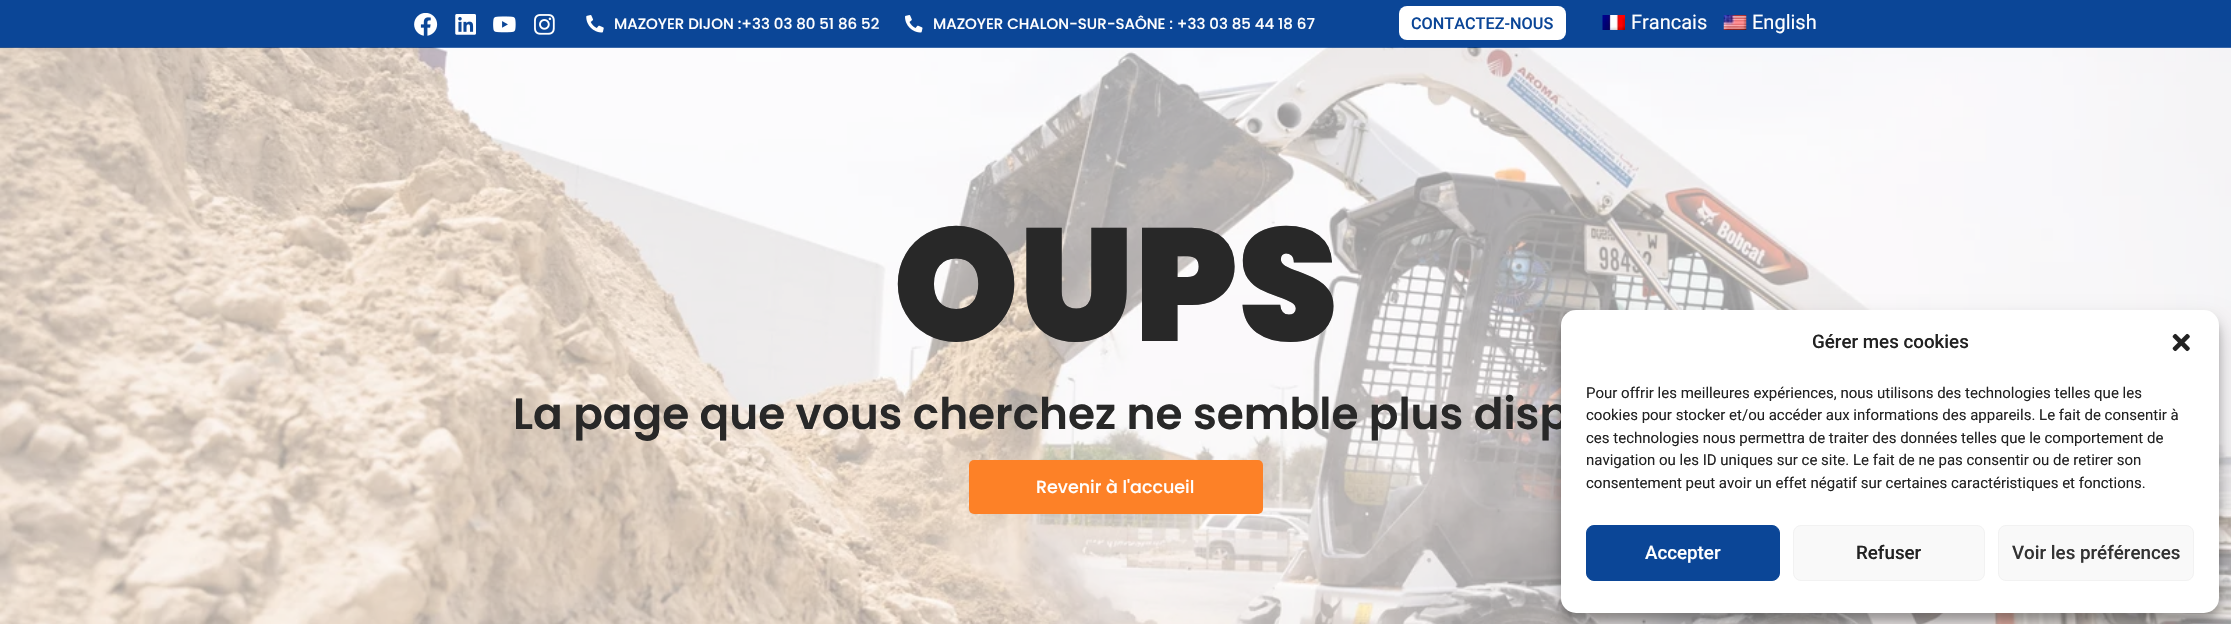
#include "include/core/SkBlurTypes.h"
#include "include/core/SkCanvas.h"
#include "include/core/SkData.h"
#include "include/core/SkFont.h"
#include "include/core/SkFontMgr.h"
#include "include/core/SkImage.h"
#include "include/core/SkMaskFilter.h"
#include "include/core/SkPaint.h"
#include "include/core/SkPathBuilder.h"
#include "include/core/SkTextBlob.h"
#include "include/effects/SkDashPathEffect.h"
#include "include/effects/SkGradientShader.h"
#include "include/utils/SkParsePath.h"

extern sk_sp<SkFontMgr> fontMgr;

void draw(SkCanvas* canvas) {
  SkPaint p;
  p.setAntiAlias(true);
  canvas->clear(SK_ColorWHITE);
  p.setColor(SkColorSetRGB(11, 70, 151));
  canvas->drawRect(SkRect::MakeLTRB(0, 0, 2231, 48), p);
  canvas->drawImageRect(SkImages::DeferredFromEncodedData(SkData::MakeFromFileName("images/1.png")), SkRect::MakeLTRB(414, 13, 438, 36), SkSamplingOptions());
  canvas->drawImageRect(SkImages::DeferredFromEncodedData(SkData::MakeFromFileName("images/2.png")), SkRect::MakeLTRB(455, 14, 476, 35), SkSamplingOptions());
  canvas->drawImageRect(SkImages::DeferredFromEncodedData(SkData::MakeFromFileName("images/3.png")), SkRect::MakeLTRB(493, 16, 516, 33), SkSamplingOptions());
  canvas->drawImageRect(SkImages::DeferredFromEncodedData(SkData::MakeFromFileName("images/4.png")), SkRect::MakeLTRB(534, 14, 555, 35), SkSamplingOptions());
  canvas->drawImageRect(SkImages::DeferredFromEncodedData(SkData::MakeFromFileName("images/5.png")), SkRect::MakeLTRB(586, 15, 604, 33), SkSamplingOptions());
  canvas->drawImageRect(SkImages::DeferredFromEncodedData(SkData::MakeFromFileName("images/6.png")), SkRect::MakeLTRB(905, 15, 923, 33), SkSamplingOptions());
  p.setColor(SK_ColorWHITE);
  canvas->drawRoundRect(SkRect::MakeLTRB(1399, 6, 1566, 40), 8, 8, p);
  canvas->drawImageRect(SkImages::DeferredFromEncodedData(SkData::MakeFromFileName("images/7.png")), SkRect::MakeLTRB(1602, 15, 1625, 30), SkSamplingOptions());
  canvas->drawImageRect(SkImages::DeferredFromEncodedData(SkData::MakeFromFileName("images/8.png")), SkRect::MakeLTRB(1723, 15, 1747, 30), SkSamplingOptions());
  canvas->drawImageRect(SkImages::DeferredFromEncodedData(SkData::MakeFromFileName("images/9.png")), SkRect::MakeLTRB(0, 47, 2231, 624), SkSamplingOptions());
  p.setColor(SkColorSetRGB(253, 129, 39));
  canvas->drawRoundRect(SkRect::MakeLTRB(969, 460, 1263, 514), 5, 5, p);
  p.setColor(SkColorSetARGB(59, 0, 0, 0));
  p.setMaskFilter(SkMaskFilter::MakeBlur(kNormal_SkBlurStyle, 4));
  canvas->drawRoundRect(SkRect::MakeLTRB(1561, 318, 2219, 620), 15, 15, p);
  p.setMaskFilter(nullptr);
  p.setColor(SkColorSetARGB(48, 0, 0, 0));
  p.setMaskFilter(SkMaskFilter::MakeBlur(kNormal_SkBlurStyle, 12.5f));
  canvas->drawRoundRect(SkRect::MakeLTRB(1561, 323, 2219, 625), 15, 15, p);
  p.setMaskFilter(nullptr);
  p.setColor(SkColorSetARGB(128, 207, 207, 207));
  p.setMaskFilter(SkMaskFilter::MakeBlur(kNormal_SkBlurStyle, 6));
  canvas->drawRoundRect(SkRect::MakeLTRB(2158, 464, 2210, 518), 26, 26, p);
  p.setMaskFilter(nullptr);
  SkFont font1(fontMgr->matchFamilyStyle("Poppins", SkFontStyle(500, SkFontStyle::kNormal_Width, SkFontStyle::kUpright_Slant)), 15);
  font1.setSubpixel(true);
  p.setColor(SK_ColorWHITE);
  canvas->drawString("MAZOYER DIJON :+33 03 80 51 86 52", 614, 29, font1, p);
  canvas->drawString("MAZOYER CHALON-SUR-SAÔNE : +33 03 85 44 18 67", 933, 29, font1, p);
  SkFont font2(fontMgr->matchFamilyStyle("Roboto", SkFontStyle(500, SkFontStyle::kNormal_Width, SkFontStyle::kUpright_Slant)), 16.25f);
  font2.setSubpixel(true);
  p.setColor(SkColorSetRGB(11, 70, 151));
  canvas->drawString("CONTACTEZ-NOUS", 1411, 29, font2, p);
  SkFont font3(fontMgr->matchFamilyStyle("Roboto", SkFontStyle::Normal()), 20);
  font3.setSubpixel(true);
  p.setColor(SK_ColorWHITE);
  canvas->drawString("Francais", 1631, 29, font3, p);
  canvas->drawString("English", 1752, 29, font3, p);
  SkFont font4(fontMgr->matchFamilyStyle("Poppins", SkFontStyle(900, SkFontStyle::kNormal_Width, SkFontStyle::kUpright_Slant)), 160);
  font4.setSubpixel(true);
  p.setColor(SkColorSetRGB(40, 40, 40));
  canvas->drawString("OUPS", 893, 341, font4, p);
  SkFont font5(fontMgr->matchFamilyStyle("Poppins", SkFontStyle(600, SkFontStyle::kNormal_Width, SkFontStyle::kUpright_Slant)), 43.75f);
  font5.setSubpixel(true);
  canvas->drawString("La page que vous cherchez ne semble plus disp", 513, 429, font5, p);
  SkFont font6(fontMgr->matchFamilyStyle("Poppins", SkFontStyle(500, SkFontStyle::kNormal_Width, SkFontStyle::kUpright_Slant)), 17.5f);
  font6.setSubpixel(true);
  p.setColor(SK_ColorWHITE);
  canvas->drawString("Revenir à l'accueil", 1036, 493, font6, p);
  canvas->drawRoundRect(SkRect::MakeLTRB(1561, 310, 2219, 613), 15, 15, p);
  SkFont font7(fontMgr->matchFamilyStyle("Roboto", SkFontStyle(500, SkFontStyle::kNormal_Width, SkFontStyle::kUpright_Slant)), 18.75f);
  font7.setSubpixel(true);
  p.setColor(SkColorSetRGB(34, 34, 34));
  canvas->drawString("Gérer mes cookies", 1812, 348, font7, p);
  canvas->drawImageRect(SkImages::DeferredFromEncodedData(SkData::MakeFromFileName("images/10.png")), SkRect::MakeLTRB(2172, 333, 2190, 352), SkSamplingOptions());
  SkFont font8(fontMgr->matchFamilyStyle("Roboto", SkFontStyle::Normal()), 15);
  font8.setSubpixel(true);
  canvas->drawString("Pour offrir les meilleures expériences, nous utilisons des technologies telles que les", 1586, 398, font8, p);
  canvas->drawString("cookies pour stocker et/ou accéder aux informations des appareils. Le fait de consentir à", 1586, 420, font8, p);
  canvas->drawString("ces technologies nous permettra de traiter des données telles que le comportement de", 1586, 443, font8, p);
  canvas->drawString("navigation ou les ID uniques sur ce site. Le fait de ne pas consentir ou de retirer son", 1586, 465, font8, p);
  canvas->drawString("consentement peut avoir un effet négatif sur certaines caractéristiques et fonctions.", 1586, 488, font8, p);
  p.setColor(SkColorSetRGB(11, 70, 151));
  canvas->drawRoundRect(SkRect::MakeLTRB(1586.5f, 525.5f, 1779.5f, 580.5f), 7.5f, 7.5f, p);
  p.setStyle(SkPaint::kStroke_Style);
  p.setStrokeWidth(1);
  canvas->drawRoundRect(SkRect::MakeLTRB(1586.5f, 525.5f, 1779.5f, 580.5f), 7.5f, 7.5f, p);
  p.setStyle(SkPaint::kFill_Style);
  p.setColor(SK_ColorWHITE);
  canvas->drawString("Accepter", 1645, 559, font7, p);
  p.setColor(SkColorSetRGB(249, 249, 249));
  canvas->drawRoundRect(SkRect::MakeLTRB(1793.5f, 525.5f, 1984.5f, 580.5f), 7.5f, 7.5f, p);
  p.setStyle(SkPaint::kStroke_Style);
  p.setColor(SkColorSetRGB(242, 242, 242));
  canvas->drawRoundRect(SkRect::MakeLTRB(1793.5f, 525.5f, 1984.5f, 580.5f), 7.5f, 7.5f, p);
  p.setStyle(SkPaint::kFill_Style);
  p.setColor(SkColorSetRGB(34, 34, 34));
  canvas->drawString("Refuser", 1856, 559, font7, p);
  p.setColor(SkColorSetRGB(249, 249, 249));
  canvas->drawRoundRect(SkRect::MakeLTRB(1998.5f, 525.5f, 2193.5f, 580.5f), 7.5f, 7.5f, p);
  p.setStyle(SkPaint::kStroke_Style);
  p.setColor(SkColorSetRGB(242, 242, 242));
  canvas->drawRoundRect(SkRect::MakeLTRB(1998.5f, 525.5f, 2193.5f, 580.5f), 7.5f, 7.5f, p);
  p.setStyle(SkPaint::kFill_Style);
  p.setColor(SkColorSetRGB(51, 51, 51));
  canvas->drawString("Voir les préférences", 2012, 559, font7, p);
}
